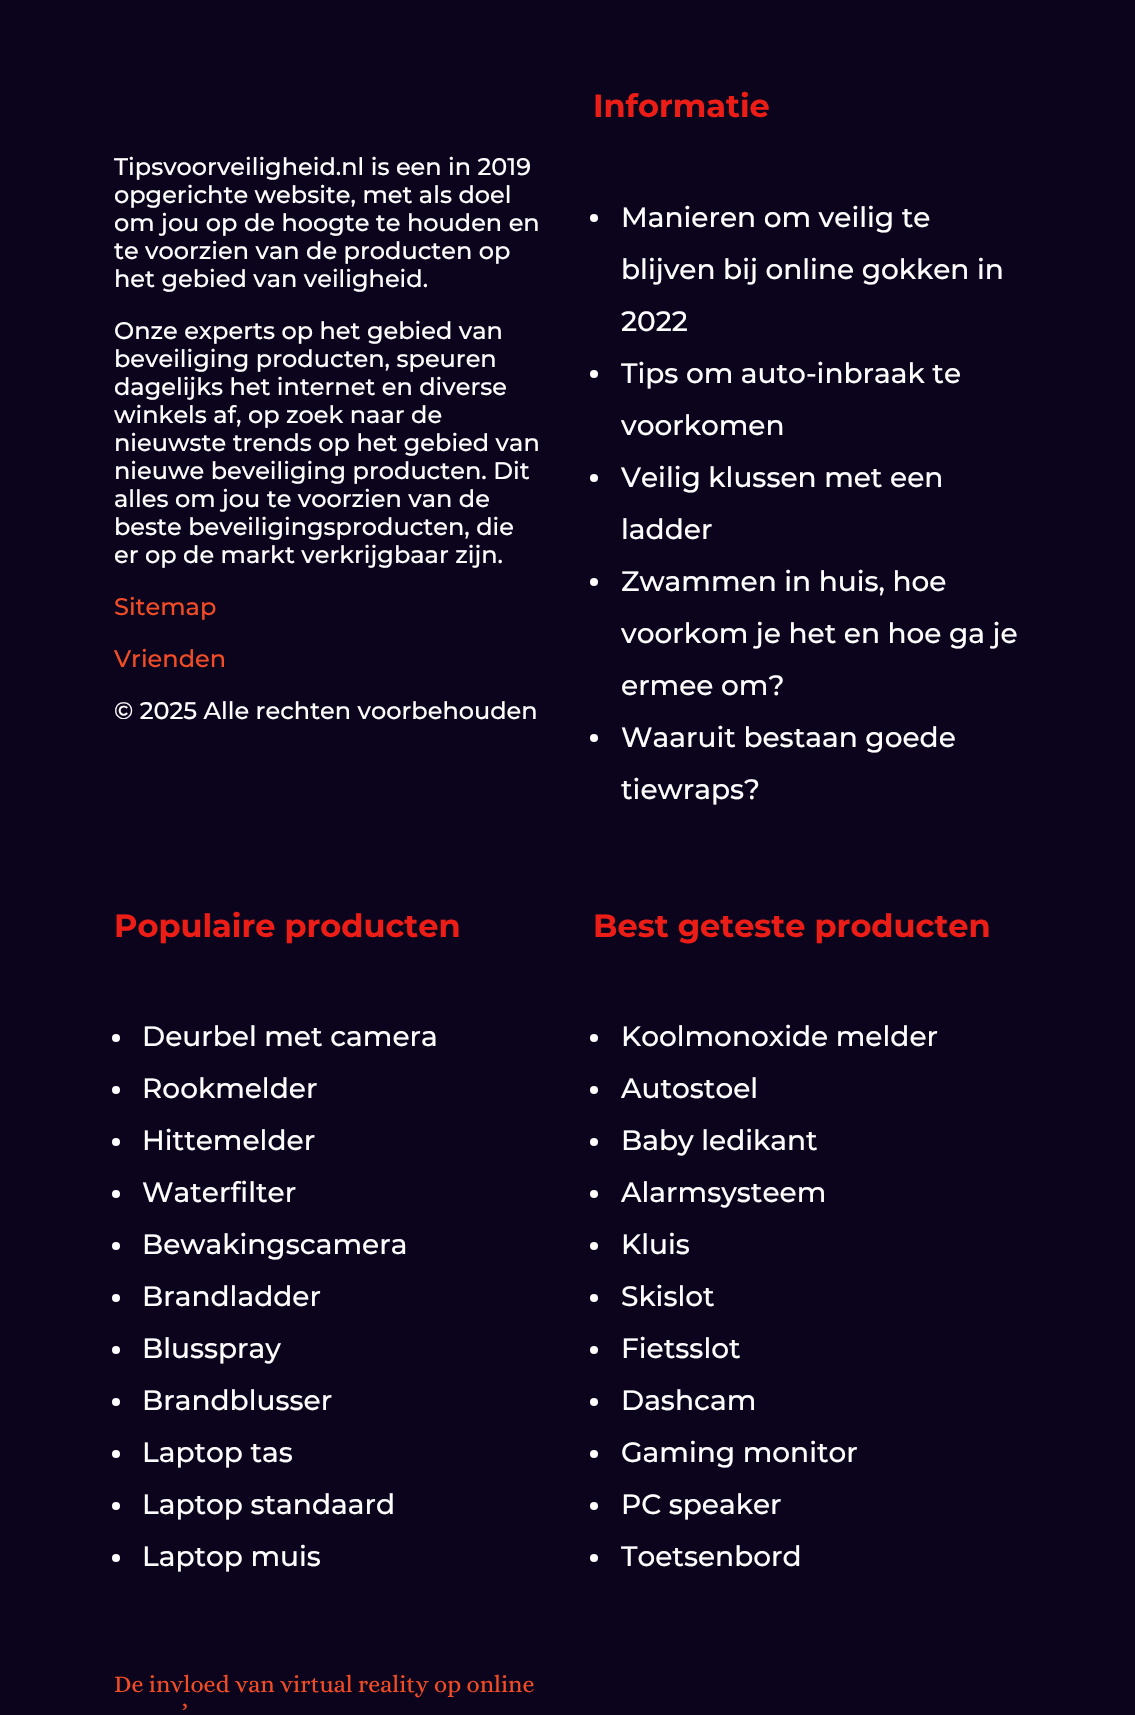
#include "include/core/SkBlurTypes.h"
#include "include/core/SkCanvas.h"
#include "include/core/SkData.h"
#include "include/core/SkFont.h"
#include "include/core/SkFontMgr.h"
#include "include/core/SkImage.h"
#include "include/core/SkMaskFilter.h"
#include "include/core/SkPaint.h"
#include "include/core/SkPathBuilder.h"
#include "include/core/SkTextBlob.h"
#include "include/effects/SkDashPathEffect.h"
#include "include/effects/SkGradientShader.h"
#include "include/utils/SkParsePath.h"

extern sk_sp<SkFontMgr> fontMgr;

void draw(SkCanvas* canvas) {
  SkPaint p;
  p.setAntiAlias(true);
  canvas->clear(SkColorSetRGB(12, 4, 28));
  p.setColor(SK_ColorWHITE);
  canvas->drawCircle(594, 218, 4, p);
  canvas->drawCircle(594, 374, 4, p);
  canvas->drawCircle(594, 478, 4, p);
  canvas->drawCircle(594, 582, 4, p);
  canvas->drawCircle(594, 738, 4, p);
  canvas->drawCircle(116, 1038, 4, p);
  canvas->drawCircle(116, 1090, 4, p);
  canvas->drawCircle(116, 1142, 4, p);
  canvas->drawCircle(116, 1194, 4, p);
  canvas->drawCircle(116, 1246, 4, p);
  canvas->drawCircle(116, 1298, 4, p);
  canvas->drawCircle(116, 1350, 4, p);
  canvas->drawCircle(116, 1402, 4, p);
  canvas->drawCircle(116, 1454, 4, p);
  canvas->drawCircle(116, 1506, 4, p);
  canvas->drawCircle(116, 1558, 4, p);
  canvas->drawCircle(594, 1038, 4, p);
  canvas->drawCircle(594, 1090, 4, p);
  canvas->drawCircle(594, 1142, 4, p);
  canvas->drawCircle(594, 1194, 4, p);
  canvas->drawCircle(594, 1246, 4, p);
  canvas->drawCircle(594, 1298, 4, p);
  canvas->drawCircle(594, 1350, 4, p);
  canvas->drawCircle(594, 1402, 4, p);
  canvas->drawCircle(594, 1454, 4, p);
  canvas->drawCircle(594, 1506, 4, p);
  canvas->drawCircle(594, 1558, 4, p);
  SkFont font1(fontMgr->matchFamilyStyle("Montserrat", SkFontStyle(500, SkFontStyle::kNormal_Width, SkFontStyle::kUpright_Slant)), 24);
  font1.setSubpixel(true);
  canvas->drawString("Tipsvoorveiligheid.nl is een in 2019", 114, 175, font1, p);
  canvas->drawString("opgerichte website, met als doel", 114, 203, font1, p);
  canvas->drawString("om jou op de hoogte te houden en", 114, 231, font1, p);
  canvas->drawString("te voorzien van de producten op", 114, 259, font1, p);
  canvas->drawString("het gebied van veiligheid.", 114, 287, font1, p);
  canvas->drawString("Onze experts op het gebied van", 114, 339, font1, p);
  canvas->drawString("beveiliging producten, speuren", 114, 367, font1, p);
  canvas->drawString("dagelijks het internet en diverse", 114, 395, font1, p);
  canvas->drawString("winkels af, op zoek naar de", 114, 423, font1, p);
  canvas->drawString("nieuwste trends op het gebied van", 114, 451, font1, p);
  canvas->drawString("nieuwe beveiliging producten. Dit", 114, 479, font1, p);
  canvas->drawString("alles om jou te voorzien van de", 114, 507, font1, p);
  canvas->drawString("beste beveiligingsproducten, die", 114, 535, font1, p);
  canvas->drawString("er op de markt verkrijgbaar zijn.", 114, 563, font1, p);
  p.setColor(SkColorSetRGB(242, 76, 39));
  canvas->drawString("Sitemap", 114, 615, font1, p);
  canvas->drawString("Vrienden", 114, 667, font1, p);
  p.setColor(SK_ColorWHITE);
  canvas->drawString("© 2025 Alle rechten voorbehouden", 114, 719, font1, p);
  SkFont font2(fontMgr->matchFamilyStyle("Montserrat", SkFontStyle::Bold()), 32);
  font2.setSubpixel(true);
  p.setColor(SkColorSetRGB(236, 28, 22));
  canvas->drawString("Informatie", 593, 117, font2, p);
  SkFont font3(fontMgr->matchFamilyStyle("Montserrat", SkFontStyle(500, SkFontStyle::kNormal_Width, SkFontStyle::kUpright_Slant)), 28);
  font3.setSubpixel(true);
  p.setColor(SK_ColorWHITE);
  canvas->drawString("Manieren om veilig te", 621, 227, font3, p);
  canvas->drawString("blijven bij online gokken in", 621, 279, font3, p);
  canvas->drawString("2022", 621, 331, font3, p);
  canvas->drawString("Tips om auto-inbraak te", 621, 383, font3, p);
  canvas->drawString("voorkomen", 621, 435, font3, p);
  canvas->drawString("Veilig klussen met een", 621, 487, font3, p);
  canvas->drawString("ladder", 621, 539, font3, p);
  canvas->drawString("Zwammen in huis, hoe", 621, 591, font3, p);
  canvas->drawString("voorkom je het en hoe ga je", 621, 643, font3, p);
  canvas->drawString("ermee om?", 621, 695, font3, p);
  canvas->drawString("Waaruit bestaan goede", 621, 747, font3, p);
  canvas->drawString("tiewraps?", 621, 799, font3, p);
  p.setColor(SkColorSetRGB(236, 28, 22));
  canvas->drawString("Populaire producten", 114, 937, font2, p);
  p.setColor(SK_ColorWHITE);
  canvas->drawString("Deurbel met camera", 142, 1046, font3, p);
  canvas->drawString("Rookmelder", 142, 1098, font3, p);
  canvas->drawString("Hittemelder", 142, 1150, font3, p);
  canvas->drawString("Waterfilter", 142, 1202, font3, p);
  canvas->drawString("Bewakingscamera", 142, 1254, font3, p);
  canvas->drawString("Brandladder", 142, 1306, font3, p);
  canvas->drawString("Blusspray", 142, 1358, font3, p);
  canvas->drawString("Brandblusser", 142, 1410, font3, p);
  canvas->drawString("Laptop tas", 142, 1462, font3, p);
  canvas->drawString("Laptop standaard", 142, 1514, font3, p);
  canvas->drawString("Laptop muis", 142, 1566, font3, p);
  p.setColor(SkColorSetRGB(236, 28, 22));
  canvas->drawString("Best geteste producten", 593, 937, font2, p);
  p.setColor(SK_ColorWHITE);
  canvas->drawString("Koolmonoxide melder", 621, 1046, font3, p);
  canvas->drawString("Autostoel", 621, 1098, font3, p);
  canvas->drawString("Baby ledikant", 621, 1150, font3, p);
  canvas->drawString("Alarmsysteem", 621, 1202, font3, p);
  canvas->drawString("Kluis", 621, 1254, font3, p);
  canvas->drawString("Skislot", 621, 1306, font3, p);
  canvas->drawString("Fietsslot", 621, 1358, font3, p);
  canvas->drawString("Dashcam", 621, 1410, font3, p);
  canvas->drawString("Gaming monitor", 621, 1462, font3, p);
  canvas->drawString("PC speaker", 621, 1514, font3, p);
  canvas->drawString("Toetsenbord", 621, 1566, font3, p);
  SkFont font4(fontMgr->matchFamilyStyle("Alice", SkFontStyle::Normal()), 24);
  font4.setSubpixel(true);
  p.setColor(SkColorSetRGB(242, 76, 39));
  canvas->drawString("De invloed van virtual reality op online", 114, 1692, font4, p);
  canvas->drawString("’", 182, 1721, font4, p);
}
